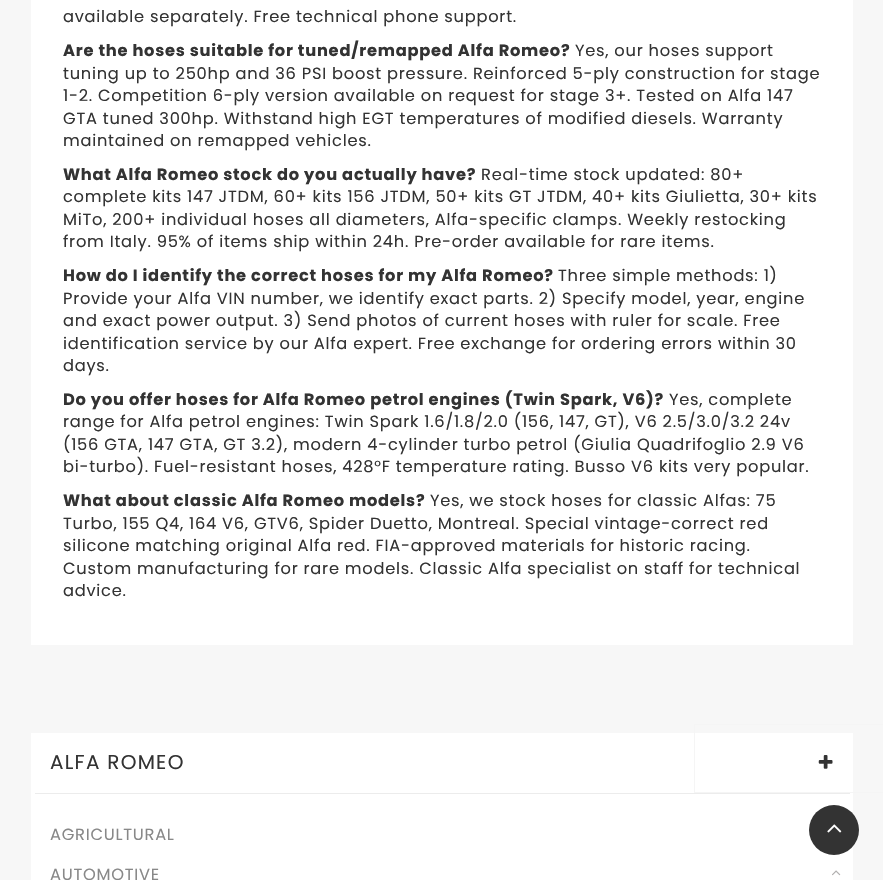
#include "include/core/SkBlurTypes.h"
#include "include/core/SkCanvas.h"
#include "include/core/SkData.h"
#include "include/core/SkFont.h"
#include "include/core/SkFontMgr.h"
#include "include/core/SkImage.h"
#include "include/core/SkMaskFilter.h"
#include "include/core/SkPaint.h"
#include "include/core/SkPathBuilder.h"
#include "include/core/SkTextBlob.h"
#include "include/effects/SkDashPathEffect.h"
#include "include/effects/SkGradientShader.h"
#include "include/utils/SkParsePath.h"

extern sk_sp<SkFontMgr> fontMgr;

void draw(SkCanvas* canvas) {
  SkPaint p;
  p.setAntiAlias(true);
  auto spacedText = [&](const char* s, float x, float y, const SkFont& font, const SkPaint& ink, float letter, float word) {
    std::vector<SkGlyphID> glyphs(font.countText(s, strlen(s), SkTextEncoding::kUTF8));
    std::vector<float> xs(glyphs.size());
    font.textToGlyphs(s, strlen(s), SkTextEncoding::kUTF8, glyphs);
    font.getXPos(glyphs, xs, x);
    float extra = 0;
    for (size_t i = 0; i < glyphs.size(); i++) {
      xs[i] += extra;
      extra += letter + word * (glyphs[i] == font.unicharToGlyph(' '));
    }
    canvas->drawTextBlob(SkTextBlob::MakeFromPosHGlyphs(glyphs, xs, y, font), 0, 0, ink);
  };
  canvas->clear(SkColorSetRGB(247, 247, 247));
  p.setColor(SK_ColorWHITE);
  canvas->drawRect(SkRect::MakeLTRB(31, 0, 853, 645), p);
  canvas->drawRect(SkRect::MakeLTRB(31, 733, 853, 880), p);
  p.setColor(SkColorSetRGB(236, 236, 236));
  canvas->drawRect(SkRect::MakeLTRB(35, 793, 850, 794), p);
  canvas->drawImageRect(SkImages::DeferredFromEncodedData(SkData::MakeFromFileName("images/1.png")), SkRect::MakeLTRB(818, 755, 833, 769), SkSamplingOptions());
  canvas->drawImageRect(SkImages::DeferredFromEncodedData(SkData::MakeFromFileName("images/2.png")), SkRect::MakeLTRB(832, 870, 841, 876), SkSamplingOptions());
  p.setStyle(SkPaint::kStroke_Style);
  p.setStrokeWidth(1);
  p.setColor(SkColorSetRGB(245, 245, 245));
  canvas->drawRect(SkRect::MakeLTRB(694.5f, 724.5f, 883.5f, 792.5f), p);
  p.setStyle(SkPaint::kFill_Style);
  p.setColor(SkColorSetRGB(51, 51, 51));
  canvas->drawCircle(834, 830, 25, p);
  canvas->drawImageRect(SkImages::DeferredFromEncodedData(SkData::MakeFromFileName("images/3.png")), SkRect::MakeLTRB(827, 824, 842, 833), SkSamplingOptions());
  SkFont font1(fontMgr->matchFamilyStyle("Poppins", SkFontStyle::Normal()), 16.25f);
  font1.setSubpixel(true);
  spacedText("available separately. Free technical phone support.", 63, 22, font1, p, 0.75f, 0);
  SkFont font2(fontMgr->matchFamilyStyle("Poppins", SkFontStyle::Bold()), 16.25f);
  font2.setSubpixel(true);
  spacedText("Are the hoses suitable for tuned/remapped Alfa Romeo?", 63, 56, font2, p, 0.75f, 0);
  spacedText("Yes, our hoses support", 575, 56, font1, p, 0.75f, 0);
  spacedText("tuning up to 250hp and 36 PSI boost pressure. Reinforced 5-ply construction for stage", 63, 79, font1, p, 0.75f, 0);
  spacedText("1-2. Competition 6-ply version available on request for stage 3+. Tested on Alfa 147", 63, 101, font1, p, 0.75f, 0);
  spacedText("GTA tuned 300hp. Withstand high EGT temperatures of modified diesels. Warranty", 63, 124, font1, p, 0.75f, 0);
  spacedText("maintained on remapped vehicles.", 63, 146, font1, p, 0.75f, 0);
  spacedText("What Alfa Romeo stock do you actually have?", 63, 180, font2, p, 0.75f, 0);
  spacedText("Real-time stock updated: 80+", 481, 180, font1, p, 0.75f, 0);
  spacedText("complete kits 147 JTDM, 60+ kits 156 JTDM, 50+ kits GT JTDM, 40+ kits Giulietta, 30+ kits", 63, 202, font1, p, 0.75f, 0);
  spacedText("MiTo, 200+ individual hoses all diameters, Alfa-specific clamps. Weekly restocking", 63, 225, font1, p, 0.75f, 0);
  spacedText("from Italy. 95% of items ship within 24h. Pre-order available for rare items.", 63, 247, font1, p, 0.75f, 0);
  spacedText("How do I identify the correct hoses for my Alfa Romeo?", 63, 281, font2, p, 0.75f, 0);
  spacedText("Three simple methods: 1)", 558, 281, font1, p, 0.75f, 0);
  spacedText("Provide your Alfa VIN number, we identify exact parts. 2) Specify model, year, engine", 63, 304, font1, p, 0.75f, 0);
  spacedText("and exact power output. 3) Send photos of current hoses with ruler for scale. Free", 63, 326, font1, p, 0.75f, 0);
  spacedText("identification service by our Alfa expert. Free exchange for ordering errors within 30", 63, 349, font1, p, 0.75f, 0);
  spacedText("days.", 63, 371, font1, p, 0.75f, 0);
  spacedText("Do you offer hoses for Alfa Romeo petrol engines (Twin Spark, V6)?", 63, 405, font2, p, 0.75f, 0);
  spacedText("Yes, complete", 669, 405, font1, p, 0.75f, 0);
  spacedText("range for Alfa petrol engines: Twin Spark 1.6/1.8/2.0 (156, 147, GT), V6 2.5/3.0/3.2 24v", 63, 427, font1, p, 0.75f, 0);
  spacedText("(156 GTA, 147 GTA, GT 3.2), modern 4-cylinder turbo petrol (Giulia Quadrifoglio 2.9 V6", 63, 450, font1, p, 0.75f, 0);
  spacedText("bi-turbo). Fuel-resistant hoses, 428°F temperature rating. Busso V6 kits very popular.", 63, 472, font1, p, 0.75f, 0);
  spacedText("What about classic Alfa Romeo models?", 63, 506, font2, p, 0.75f, 0);
  spacedText("Yes, we stock hoses for classic Alfas: 75", 430, 506, font1, p, 0.75f, 0);
  spacedText("Turbo, 155 Q4, 164 V6, GTV6, Spider Duetto, Montreal. Special vintage-correct red", 63, 529, font1, p, 0.75f, 0);
  spacedText("silicone matching original Alfa red. FIA-approved materials for historic racing.", 63, 551, font1, p, 0.75f, 0);
  spacedText("Custom manufacturing for rare models. Classic Alfa specialist on staff for technical", 63, 574, font1, p, 0.75f, 0);
  spacedText("advice.", 63, 596, font1, p, 0.75f, 0);
  SkFont font3(fontMgr->matchFamilyStyle("Poppins", SkFontStyle::Normal()), 20);
  font3.setSubpixel(true);
  spacedText("ALFA ROMEO", 50, 769, font3, p, 1.25f, 0);
  p.setColor(SkColorSetRGB(136, 136, 136));
  spacedText("AGRICULTURAL", 50, 840, font1, p, 0.75f, 0);
  spacedText("AUTOMOTIVE", 50, 880, font1, p, 0.75f, 0);
}
